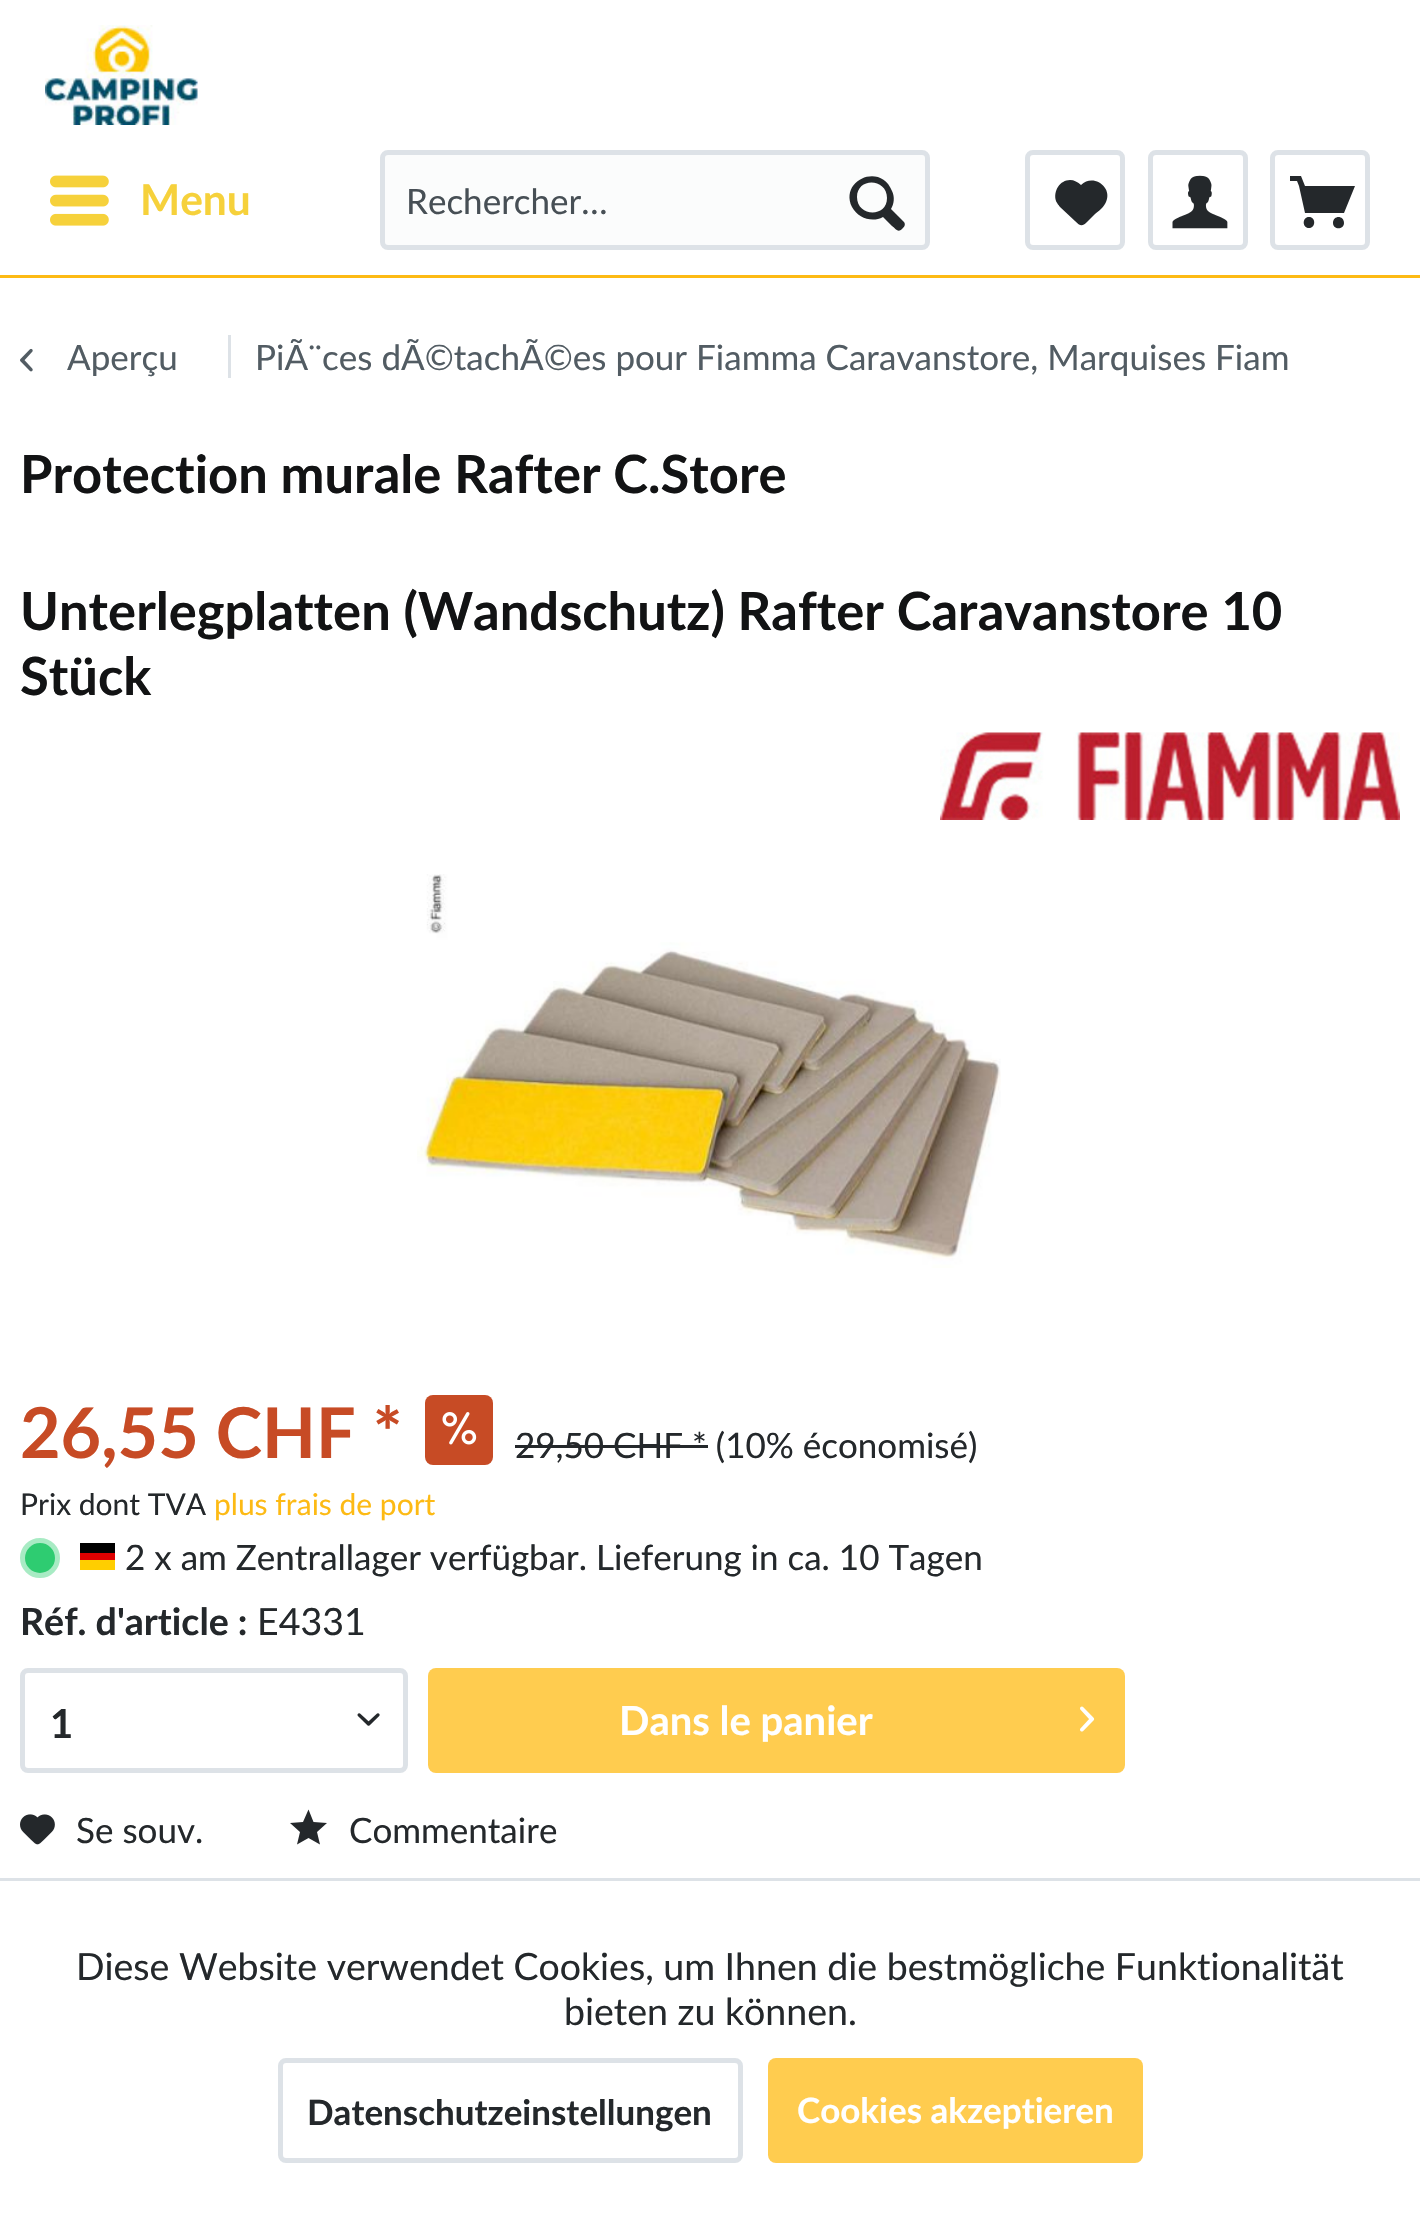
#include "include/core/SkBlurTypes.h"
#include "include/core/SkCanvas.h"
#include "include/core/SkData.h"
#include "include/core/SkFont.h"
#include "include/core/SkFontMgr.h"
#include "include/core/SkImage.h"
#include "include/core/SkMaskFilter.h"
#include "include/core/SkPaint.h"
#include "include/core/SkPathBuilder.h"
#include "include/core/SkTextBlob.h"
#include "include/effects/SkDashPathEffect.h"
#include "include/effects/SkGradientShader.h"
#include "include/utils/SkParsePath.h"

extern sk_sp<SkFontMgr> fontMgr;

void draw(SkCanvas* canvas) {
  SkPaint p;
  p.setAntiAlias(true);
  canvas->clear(SK_ColorWHITE);
  p.setColor(SkColorSetRGB(253, 186, 20));
  canvas->drawRect(SkRect::MakeLTRB(0, 275, 1420, 278), p);
  canvas->drawImageRect(SkImages::DeferredFromEncodedData(SkData::MakeFromFileName("images/1.png")), SkRect::MakeLTRB(45, 25, 198, 125), SkSamplingOptions());
  canvas->drawImageRect(SkImages::DeferredFromEncodedData(SkData::MakeFromFileName("images/2.png")), SkRect::MakeLTRB(50, 175, 109, 226), SkSamplingOptions());
  p.setColor(SkColorSetRGB(251, 252, 252));
  canvas->drawRoundRect(SkRect::MakeLTRB(382.5f, 152.5f, 927.5f, 247.5f), 5.5f, 5.5f, p);
  p.setStyle(SkPaint::kStroke_Style);
  p.setStrokeWidth(5);
  p.setColor(SkColorSetRGB(221, 226, 231));
  canvas->drawRoundRect(SkRect::MakeLTRB(382.5f, 152.5f, 927.5f, 247.5f), 5.5f, 5.5f, p);
  p.setStyle(SkPaint::kFill_Style);
  p.setColor(SkColorSetRGB(36, 40, 43));
  canvas->drawPath(SkPathBuilder().moveTo(904, 222).lineTo(891, 209).cubicTo(894, 204, 895, 197, 892, 191).cubicTo(881, 162, 839, 180, 852, 207).cubicTo(858, 218, 872, 223, 883, 217).lineTo(892, 226).cubicTo(896, 229, 898, 233, 902, 229).cubicTo(904, 227, 906, 225, 904, 222).close().moveTo(857, 197).cubicTo(857, 177, 887, 178, 887, 198).cubicTo(887, 218, 857, 217, 857, 197).close().detach(), p);
  p.setStyle(SkPaint::kStroke_Style);
  p.setColor(SkColorSetRGB(221, 226, 231));
  canvas->drawRoundRect(SkRect::MakeLTRB(1027.5f, 152.5f, 1122.5f, 247.5f), 5.5f, 5.5f, p);
  p.setStyle(SkPaint::kFill_Style);
  p.setColor(SkColorSetRGB(36, 40, 43));
  canvas->drawPath(SkPathBuilder().moveTo(1070, 180).cubicTo(1060, 180, 1053, 191, 1056, 201).cubicTo(1056, 202, 1060, 207, 1060, 207).lineTo(1075, 221).cubicTo(1080, 226, 1082, 227, 1087, 222).lineTo(1095, 214).cubicTo(1099, 211, 1104, 207, 1106, 202).cubicTo(1113, 187, 1093, 173, 1081, 185).cubicTo(1078, 182, 1074, 180, 1070, 180).close().detach(), p);
  p.setStyle(SkPaint::kStroke_Style);
  p.setColor(SkColorSetRGB(221, 226, 231));
  canvas->drawRoundRect(SkRect::MakeLTRB(1150.5f, 152.5f, 1245.5f, 247.5f), 5.5f, 5.5f, p);
  canvas->drawImageRect(SkImages::DeferredFromEncodedData(SkData::MakeFromFileName("images/3.png")), SkRect::MakeLTRB(1172, 175, 1228, 229), SkSamplingOptions());
  canvas->drawRoundRect(SkRect::MakeLTRB(1272.5f, 152.5f, 1367.5f, 247.5f), 5.5f, 5.5f, p);
  p.setStyle(SkPaint::kFill_Style);
  p.setColor(SkColorSetRGB(36, 40, 43));
  canvas->drawPath(SkPathBuilder().moveTo(1305, 213).lineTo(1344, 213).lineTo(1355, 186).lineTo(1305, 186).lineTo(1301, 176).lineTo(1290, 176).lineTo(1290, 181).lineTo(1297, 181).lineTo(1299, 186).close().moveTo(1309, 217).cubicTo(1302, 217, 1302, 228, 1309, 228).cubicTo(1316, 228, 1316, 217, 1309, 217).close().moveTo(1344, 223).cubicTo(1344, 230, 1333, 230, 1333, 223).cubicTo(1333, 215, 1344, 215, 1344, 223).close().detach(), p);
  canvas->drawImageRect(SkImages::DeferredFromEncodedData(SkData::MakeFromFileName("images/4.png")), SkRect::MakeLTRB(20, 348, 33, 372), SkSamplingOptions());
  p.setColor(SkColorSetRGB(221, 226, 231));
  canvas->drawRect(SkRect::MakeLTRB(228, 335, 231, 378), p);
  canvas->drawImageRect(SkImages::DeferredFromEncodedData(SkData::MakeFromFileName("images/5.png")), SkRect::MakeLTRB(940, 732, 1400, 820), SkSamplingOptions());
  canvas->drawImageRect(SkImages::DeferredFromEncodedData(SkData::MakeFromFileName("images/6.png")), SkRect::MakeLTRB(417, 874, 1001, 1268), SkSamplingOptions());
  p.setColor(SkColorSetRGB(199, 75, 37));
  canvas->drawRoundRect(SkRect::MakeLTRB(425, 1395, 493, 1465), 8, 8, p);
  canvas->drawImageRect(SkImages::DeferredFromEncodedData(SkData::MakeFromFileName("images/7.png")), SkRect::MakeLTRB(442, 1412, 477, 1445), SkSamplingOptions());
  p.setColor(SkColorSetRGB(36, 40, 43));
  canvas->drawRect(SkRect::MakeLTRB(515, 1445, 708, 1448), p);
  p.setColor(SkColorSetRGB(46, 204, 113));
  canvas->drawCircle(40, 1558, 17.5f, p);
  p.setStyle(SkPaint::kStroke_Style);
  p.setColor(SkColorSetRGB(168, 235, 196));
  canvas->drawCircle(40, 1558, 17.5f, p);
  p.setStyle(SkPaint::kFill_Style);
  p.setColor(SK_ColorBLACK);
  canvas->drawRect(SkRect::MakeLTRB(80, 1543, 115, 1553), p);
  p.setColor(SkColorSetRGB(221, 0, 0));
  canvas->drawRect(SkRect::MakeLTRB(80, 1553, 115, 1560), p);
  p.setColor(SkColorSetRGB(255, 206, 0));
  canvas->drawRect(SkRect::MakeLTRB(80, 1560, 115, 1570), p);
  p.setStyle(SkPaint::kStroke_Style);
  p.setColor(SkColorSetRGB(221, 226, 231));
  canvas->drawRoundRect(SkRect::MakeLTRB(22.5f, 1670.5f, 405.5f, 1770.5f), 5.5f, 5.5f, p);
  canvas->drawImageRect(SkImages::DeferredFromEncodedData(SkData::MakeFromFileName("images/8.png")), SkRect::MakeLTRB(357, 1713, 380, 1726), SkSamplingOptions());
  p.setStyle(SkPaint::kFill_Style);
  p.setColor(SkColorSetRGB(255, 204, 79));
  canvas->drawRoundRect(SkRect::MakeLTRB(428, 1668, 1125, 1773), 8, 8, p);
  canvas->drawImageRect(SkImages::DeferredFromEncodedData(SkData::MakeFromFileName("images/9.png")), SkRect::MakeLTRB(1080, 1706, 1095, 1732), SkSamplingOptions());
  canvas->drawImageRect(SkImages::DeferredFromEncodedData(SkData::MakeFromFileName("images/10.png")), SkRect::MakeLTRB(20, 1814, 55, 1845), SkSamplingOptions());
  p.setColor(SkColorSetRGB(36, 40, 43));
  canvas->drawPath(SkPathBuilder().moveTo(308.5f, 1809.5f).lineTo(303, 1822).lineTo(290, 1823).lineTo(300, 1832).lineTo(297, 1844.5f).lineTo(308.5f, 1838).lineTo(320, 1844.5f).lineTo(317, 1832).lineTo(327, 1823).lineTo(313.5f, 1822).close().detach(), p);
  p.setColor(SkColorSetRGB(221, 226, 231));
  canvas->drawRect(SkRect::MakeLTRB(0, 1878, 1420, 1881), p);
  p.setStyle(SkPaint::kStroke_Style);
  canvas->drawRoundRect(SkRect::MakeLTRB(280.5f, 2060.5f, 740.5f, 2160.5f), 5.5f, 5.5f, p);
  p.setStyle(SkPaint::kFill_Style);
  p.setColor(SkColorSetRGB(255, 204, 79));
  canvas->drawRoundRect(SkRect::MakeLTRB(768, 2058, 1143, 2163), 8, 8, p);
  SkFont font1(fontMgr->matchFamilyStyle("Lato", SkFontStyle::Bold()), 42.5f);
  font1.setSubpixel(true);
  p.setColor(SkColorSetRGB(246, 209, 59));
  canvas->drawString("Menu", 140, 215, font1, p);
  SkFont font2(fontMgr->matchFamilyStyle("Lato", SkFontStyle::Normal()), 35);
  font2.setSubpixel(true);
  p.setColor(SkColorSetRGB(71, 79, 85));
  canvas->drawString("Rechercher…", 406, 214, font2, p);
  p.setColor(SkColorSetRGB(82, 92, 99));
  canvas->drawString("Aperçu", 67, 370, font2, p);
  canvas->drawString("PiÃ¨ces dÃ©tachÃ©es pour Fiamma Caravanstore, Marquises Fiam", 255, 370, font2, p);
  SkFont font3(fontMgr->matchFamilyStyle("Lato", SkFontStyle::Bold()), 52.5f);
  font3.setSubpixel(true);
  p.setColor(SkColorSetRGB(18, 19, 20));
  canvas->drawString("Protection murale Rafter C.Store", 20, 493, font3, p);
  canvas->drawString("Unterlegplatten (Wandschutz) Rafter Caravanstore 10", 20, 630, font3, p);
  canvas->drawString("Stück", 20, 695, font3, p);
  SkFont font4(fontMgr->matchFamilyStyle("Lato", SkFontStyle::Bold()), 70);
  font4.setSubpixel(true);
  p.setColor(SkColorSetRGB(199, 75, 37));
  canvas->drawString("26,55 CHF *", 20, 1458, font4, p);
  p.setColor(SkColorSetRGB(36, 40, 43));
  canvas->drawString("29,50 CHF * (10% économisé)", 515, 1458, font2, p);
  SkFont font5(fontMgr->matchFamilyStyle("Lato", SkFontStyle::Normal()), 30);
  font5.setSubpixel(true);
  canvas->drawString("Prix dont TVA", 20, 1515, font5, p);
  p.setColor(SkColorSetRGB(253, 186, 20));
  canvas->drawString("plus frais de port", 214, 1515, font5, p);
  p.setColor(SkColorSetRGB(36, 40, 43));
  canvas->drawString("2 x am Zentrallager verfügbar. Lieferung in ca. 10 Tagen", 125, 1570, font2, p);
  SkFont font6(fontMgr->matchFamilyStyle("Lato", SkFontStyle::Bold()), 37.5f);
  font6.setSubpixel(true);
  canvas->drawString("Réf. d'article :", 20, 1635, font6, p);
  SkFont font7(fontMgr->matchFamilyStyle("Lato", SkFontStyle::Normal()), 37.5f);
  font7.setSubpixel(true);
  canvas->drawString("E4331", 257, 1635, font7, p);
  SkFont font8(fontMgr->matchFamilyStyle("Lato", SkFontStyle::Bold()), 40);
  font8.setSubpixel(true);
  canvas->drawString("1", 50, 1738, font8, p);
  p.setColor(SK_ColorWHITE);
  canvas->drawString("Dans le panier", 619, 1735, font8, p);
  p.setColor(SkColorSetRGB(36, 40, 43));
  canvas->drawString("Se souv.", 76, 1843, font2, p);
  canvas->drawString("Commentaire", 349, 1843, font2, p);
  canvas->drawString("Diese Website verwendet Cookies, um Ihnen die bestmögliche Funktionalität", 76, 1980, font7, p);
  canvas->drawString("bieten zu können.", 564, 2025, font7, p);
  SkFont font9(fontMgr->matchFamilyStyle("Lato", SkFontStyle::Bold()), 35);
  font9.setSubpixel(true);
  canvas->drawString("Datenschutzeinstellungen", 307, 2125, font9, p);
  p.setColor(SK_ColorWHITE);
  canvas->drawString("Cookies akzeptieren", 797, 2123, font9, p);
}
